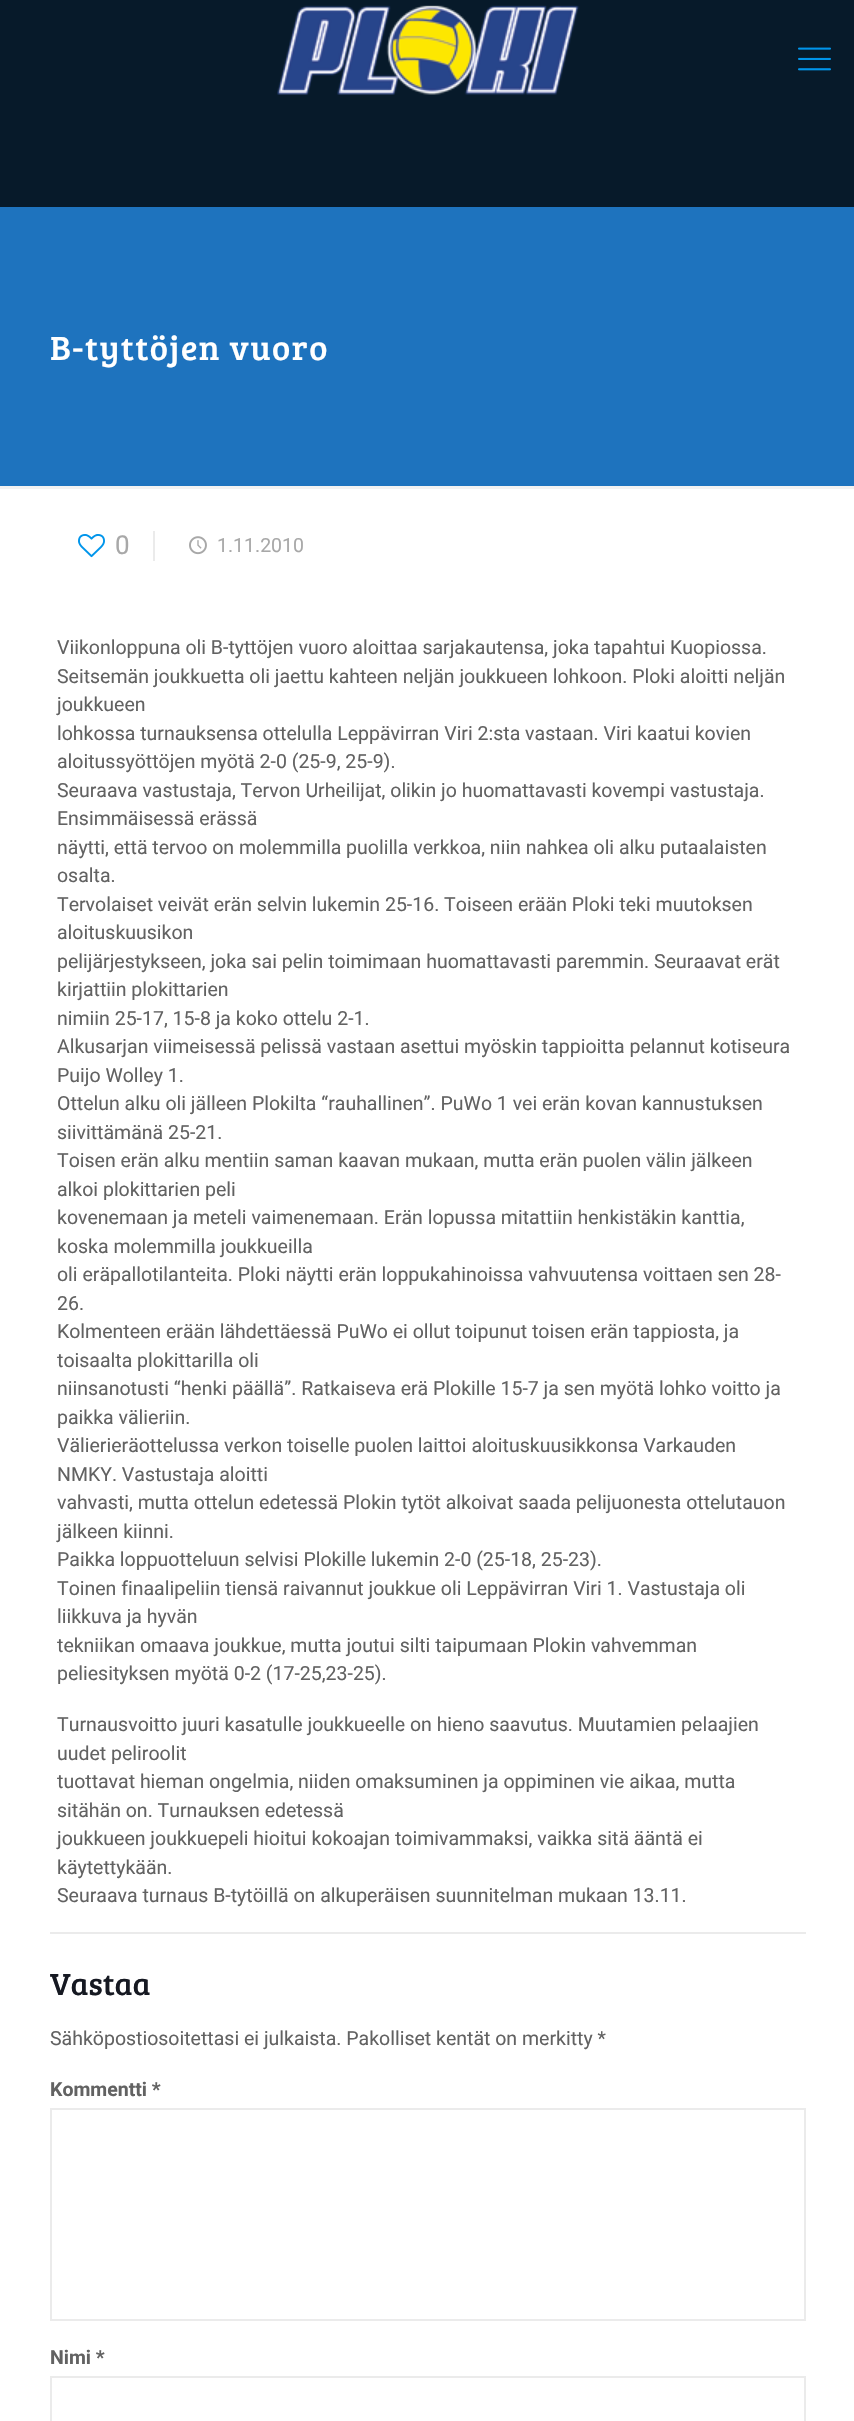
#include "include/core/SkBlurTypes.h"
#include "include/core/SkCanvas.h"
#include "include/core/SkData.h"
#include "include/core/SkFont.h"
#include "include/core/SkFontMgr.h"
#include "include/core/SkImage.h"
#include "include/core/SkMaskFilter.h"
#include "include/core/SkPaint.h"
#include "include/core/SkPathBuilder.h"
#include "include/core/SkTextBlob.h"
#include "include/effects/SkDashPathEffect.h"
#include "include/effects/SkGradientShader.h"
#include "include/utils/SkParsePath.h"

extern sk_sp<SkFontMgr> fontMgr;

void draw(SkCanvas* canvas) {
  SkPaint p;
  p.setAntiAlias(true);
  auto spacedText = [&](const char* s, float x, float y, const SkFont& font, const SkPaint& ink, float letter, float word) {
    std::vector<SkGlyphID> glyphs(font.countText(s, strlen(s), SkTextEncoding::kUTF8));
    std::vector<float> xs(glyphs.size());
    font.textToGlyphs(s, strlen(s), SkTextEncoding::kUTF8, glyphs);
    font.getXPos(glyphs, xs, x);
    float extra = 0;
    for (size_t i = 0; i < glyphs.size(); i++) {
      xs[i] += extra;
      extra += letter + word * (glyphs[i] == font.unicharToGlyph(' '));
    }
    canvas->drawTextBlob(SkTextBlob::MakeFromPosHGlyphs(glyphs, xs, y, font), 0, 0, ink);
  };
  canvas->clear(SK_ColorWHITE);
  p.setColor(SkColorSetRGB(7, 26, 42));
  canvas->drawRect(SkRect::MakeLTRB(0, 0, 854, 207), p);
  canvas->drawImageRect(SkImages::DeferredFromEncodedData(SkData::MakeFromFileName("images/1.png")), SkRect::MakeLTRB(277, 5, 580, 95), SkSamplingOptions());
  canvas->drawImageRect(SkImages::DeferredFromEncodedData(SkData::MakeFromFileName("images/2.png")), SkRect::MakeLTRB(798, 47, 831, 71), SkSamplingOptions());
  p.setColor(SkColorSetRGB(30, 115, 190));
  canvas->drawRect(SkRect::MakeLTRB(0, 207, 854, 486), p);
  p.setColor(SkColorSetRGB(242, 242, 242));
  canvas->drawRect(SkRect::MakeLTRB(0, 486, 854, 489), p);
  canvas->drawImageRect(SkImages::DeferredFromEncodedData(SkData::MakeFromFileName("images/3.png")), SkRect::MakeLTRB(78, 534, 105, 558), SkSamplingOptions());
  p.setColor(SkColorSetRGB(235, 235, 235));
  canvas->drawRect(SkRect::MakeLTRB(153, 531, 155, 561), p);
  canvas->drawImageRect(SkImages::DeferredFromEncodedData(SkData::MakeFromFileName("images/4.png")), SkRect::MakeLTRB(189, 536, 207, 555), SkSamplingOptions());
  canvas->drawRect(SkRect::MakeLTRB(50, 1932, 806, 1934), p);
  p.setStyle(SkPaint::kStroke_Style);
  p.setStrokeWidth(2);
  canvas->drawRect(SkRect::MakeLTRB(51, 2109, 805, 2320), p);
  canvas->drawRect(SkRect::MakeLTRB(51, 2377, 805, 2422), p);
  SkFont font1(fontMgr->matchFamilyStyle("Bree Serif", SkFontStyle::Normal()), 34.5f);
  font1.setSubpixel(true);
  p.setStyle(SkPaint::kFill_Style);
  p.setColor(SK_ColorWHITE);
  spacedText("B-tyttöjen vuoro", 50, 360, font1, p, 1.5f, 0);
  SkFont font2(fontMgr->matchFamilyStyle("Roboto", SkFontStyle::Normal()), 26);
  font2.setSubpixel(true);
  p.setColor(SkColorSetRGB(168, 168, 168));
  canvas->drawString("0", 115, 554, font2, p);
  SkFont font3(fontMgr->matchFamilyStyle("Roboto", SkFontStyle::Normal()), 19.5f);
  font3.setSubpixel(true);
  canvas->drawString("1.11.2010", 217, 552, font3, p);
  p.setColor(SkColorSetRGB(98, 98, 98));
  canvas->drawString("Viikonloppuna oli B-tyttöjen vuoro aloittaa sarjakautensa, joka tapahtui Kuopiossa.", 57, 654, font3, p);
  canvas->drawString("Seitsemän joukkuetta oli jaettu kahteen neljän joukkueen lohkoon. Ploki aloitti neljän", 57, 683, font3, p);
  canvas->drawString("joukkueen", 57, 711, font3, p);
  canvas->drawString("lohkossa turnauksensa ottelulla Leppävirran Viri 2:sta vastaan. Viri kaatui kovien", 57, 740, font3, p);
  canvas->drawString("aloitussyöttöjen myötä 2-0 (25-9, 25-9).", 57, 768, font3, p);
  canvas->drawString("Seuraava vastustaja, Tervon Urheilijat, olikin jo huomattavasti kovempi vastustaja.", 57, 797, font3, p);
  canvas->drawString("Ensimmäisessä erässä", 57, 825, font3, p);
  canvas->drawString("näytti, että tervoo on molemmilla puolilla verkkoa, niin nahkea oli alku putaalaisten", 57, 854, font3, p);
  canvas->drawString("osalta.", 57, 882, font3, p);
  canvas->drawString("Tervolaiset veivät erän selvin lukemin 25-16. Toiseen erään Ploki teki muutoksen", 57, 911, font3, p);
  canvas->drawString("aloituskuusikon", 57, 939, font3, p);
  canvas->drawString("pelijärjestykseen, joka sai pelin toimimaan huomattavasti paremmin. Seuraavat erät", 57, 968, font3, p);
  canvas->drawString("kirjattiin plokittarien", 57, 996, font3, p);
  canvas->drawString("nimiin 25-17, 15-8 ja koko ottelu 2-1.", 57, 1025, font3, p);
  canvas->drawString("Alkusarjan viimeisessä pelissä vastaan asettui myöskin tappioitta pelannut kotiseura", 57, 1053, font3, p);
  canvas->drawString("Puijo Wolley 1.", 57, 1082, font3, p);
  canvas->drawString("Ottelun alku oli jälleen Plokilta “rauhallinen”. PuWo 1 vei erän kovan kannustuksen", 57, 1110, font3, p);
  canvas->drawString("siivittämänä 25-21.", 57, 1139, font3, p);
  canvas->drawString("Toisen erän alku mentiin saman kaavan mukaan, mutta erän puolen välin jälkeen", 57, 1167, font3, p);
  canvas->drawString("alkoi plokittarien peli", 57, 1196, font3, p);
  canvas->drawString("kovenemaan ja meteli vaimenemaan. Erän lopussa mitattiin henkistäkin kanttia,", 57, 1224, font3, p);
  canvas->drawString("koska molemmilla joukkueilla", 57, 1253, font3, p);
  canvas->drawString("oli eräpallotilanteita. Ploki näytti erän loppukahinoissa vahvuutensa voittaen sen 28-", 57, 1281, font3, p);
  canvas->drawString("26.", 57, 1310, font3, p);
  canvas->drawString("Kolmenteen erään lähdettäessä PuWo ei ollut toipunut toisen erän tappiosta, ja", 57, 1338, font3, p);
  canvas->drawString("toisaalta plokittarilla oli", 57, 1367, font3, p);
  canvas->drawString("niinsanotusti “henki päällä”. Ratkaiseva erä Plokille 15-7 ja sen myötä lohko voitto ja", 57, 1395, font3, p);
  canvas->drawString("paikka välieriin.", 57, 1424, font3, p);
  canvas->drawString("Välierieräottelussa verkon toiselle puolen laittoi aloituskuusikkonsa Varkauden", 57, 1452, font3, p);
  canvas->drawString("NMKY. Vastustaja aloitti", 57, 1481, font3, p);
  canvas->drawString("vahvasti, mutta ottelun edetessä Plokin tytöt alkoivat saada pelijuonesta ottelutauon", 57, 1509, font3, p);
  canvas->drawString("jälkeen kiinni.", 57, 1538, font3, p);
  canvas->drawString("Paikka loppuotteluun selvisi Plokille lukemin 2-0 (25-18, 25-23).", 57, 1566, font3, p);
  canvas->drawString("Toinen finaalipeliin tiensä raivannut joukkue oli Leppävirran Viri 1. Vastustaja oli", 57, 1595, font3, p);
  canvas->drawString("liikkuva ja hyvän", 57, 1623, font3, p);
  canvas->drawString("tekniikan omaava joukkue, mutta joutui silti taipumaan Plokin vahvemman", 57, 1652, font3, p);
  canvas->drawString("peliesityksen myötä 0-2 (17-25,23-25).", 57, 1680, font3, p);
  canvas->drawString("Turnausvoitto juuri kasatulle joukkueelle on hieno saavutus. Muutamien pelaajien", 57, 1731, font3, p);
  canvas->drawString("uudet peliroolit", 57, 1760, font3, p);
  canvas->drawString("tuottavat hieman ongelmia, niiden omaksuminen ja oppiminen vie aikaa, mutta", 57, 1788, font3, p);
  canvas->drawString("sitähän on. Turnauksen edetessä", 57, 1817, font3, p);
  canvas->drawString("joukkueen joukkuepeli hioitui kokoajan toimivammaksi, vaikka sitä ääntä ei", 57, 1845, font3, p);
  canvas->drawString("käytettykään.", 57, 1874, font3, p);
  canvas->drawString("Seuraava turnaus B-tytöillä on alkuperäisen suunnitelman mukaan 13.11.", 57, 1902, font3, p);
  canvas->save();
  canvas->clipRect(SkRect::MakeLTRB(50, 1934, 806, 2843));
  SkFont font4(fontMgr->matchFamilyStyle("Bree Serif", SkFontStyle::Normal()), 31.5f);
  font4.setSubpixel(true);
  p.setColor(SkColorSetRGB(22, 25, 34));
  canvas->drawString("Vastaa", 50, 1995, font4, p);
  canvas->restore();
  p.setColor(SkColorSetRGB(98, 98, 98));
  canvas->drawString("Sähköpostiosoitettasi ei julkaista. Pakolliset kentät on merkitty *", 50, 2045, font3, p);
  SkFont font5(fontMgr->matchFamilyStyle("Roboto", SkFontStyle::Bold()), 19.5f);
  font5.setSubpixel(true);
  canvas->drawString("Kommentti *", 50, 2096, font5, p);
  canvas->drawString("Nimi *", 50, 2364, font5, p);
}
